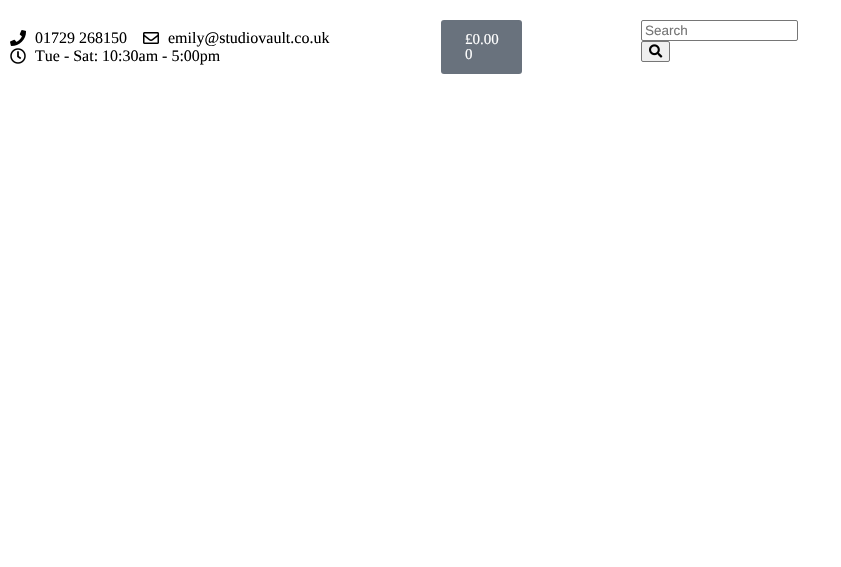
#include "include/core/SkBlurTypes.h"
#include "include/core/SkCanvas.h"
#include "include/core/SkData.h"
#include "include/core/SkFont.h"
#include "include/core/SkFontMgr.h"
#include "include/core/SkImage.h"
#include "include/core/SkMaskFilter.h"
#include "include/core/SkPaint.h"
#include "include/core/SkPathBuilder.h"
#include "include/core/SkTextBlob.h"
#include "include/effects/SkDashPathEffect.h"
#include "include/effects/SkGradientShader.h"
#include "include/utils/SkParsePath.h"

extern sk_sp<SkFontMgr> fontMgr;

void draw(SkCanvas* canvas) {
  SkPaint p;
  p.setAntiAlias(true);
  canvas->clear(SK_ColorWHITE);
  canvas->drawImageRect(SkImages::DeferredFromEncodedData(SkData::MakeFromFileName("images/1.png")), SkRect::MakeLTRB(10, 30, 26, 46), SkSamplingOptions());
  canvas->drawImageRect(SkImages::DeferredFromEncodedData(SkData::MakeFromFileName("images/2.png")), SkRect::MakeLTRB(143, 32, 159, 44), SkSamplingOptions());
  canvas->drawImageRect(SkImages::DeferredFromEncodedData(SkData::MakeFromFileName("images/3.png")), SkRect::MakeLTRB(10, 48, 26, 64), SkSamplingOptions());
  p.setStyle(SkPaint::kStroke_Style);
  p.setStrokeWidth(1);
  p.setColor(SkColorSetRGB(118, 118, 118));
  canvas->drawRoundRect(SkRect::MakeLTRB(641.5f, 20.5f, 797.5f, 40.5f), 1.5f, 1.5f, p);
  p.setStyle(SkPaint::kFill_Style);
  p.setColor(SkColorSetRGB(239, 239, 239));
  canvas->drawRoundRect(SkRect::MakeLTRB(641.5f, 41.5f, 669.5f, 61.5f), 1.5f, 1.5f, p);
  p.setStyle(SkPaint::kStroke_Style);
  p.setColor(SkColorSetRGB(118, 118, 118));
  canvas->drawRoundRect(SkRect::MakeLTRB(641.5f, 41.5f, 669.5f, 61.5f), 1.5f, 1.5f, p);
  canvas->drawImageRect(SkImages::DeferredFromEncodedData(SkData::MakeFromFileName("images/4.png")), SkRect::MakeLTRB(649, 44, 663, 58), SkSamplingOptions());
  p.setStyle(SkPaint::kFill_Style);
  p.setColor(SkColorSetRGB(105, 114, 125));
  canvas->drawRoundRect(SkRect::MakeLTRB(441, 20, 522, 74), 3, 3, p);
  SkFont font1(fontMgr->matchFamilyStyle("Liberation Serif", SkFontStyle::Normal()), 16);
  font1.setSubpixel(true);
  p.setColor(SK_ColorBLACK);
  canvas->drawString("01729 268150", 35, 43, font1, p);
  canvas->drawString("emily@studiovault.co.uk", 168, 43, font1, p);
  canvas->drawString("Tue - Sat: 10:30am - 5:00pm", 35, 61, font1, p);
  SkFont font2(fontMgr->matchFamilyStyle("Liberation Sans", SkFontStyle::Normal()), 13.5f);
  font2.setSubpixel(true);
  p.setColor(SkColorSetRGB(117, 117, 117));
  canvas->drawString("Search", 645, 35, font2, p);
  SkFont font3(fontMgr->matchFamilyStyle("Liberation Serif", SkFontStyle::Normal()), 15);
  font3.setSubpixel(true);
  p.setColor(SK_ColorWHITE);
  canvas->drawString("£0.00", 465, 44, font3, p);
  canvas->drawString("0", 465, 59, font3, p);
}
